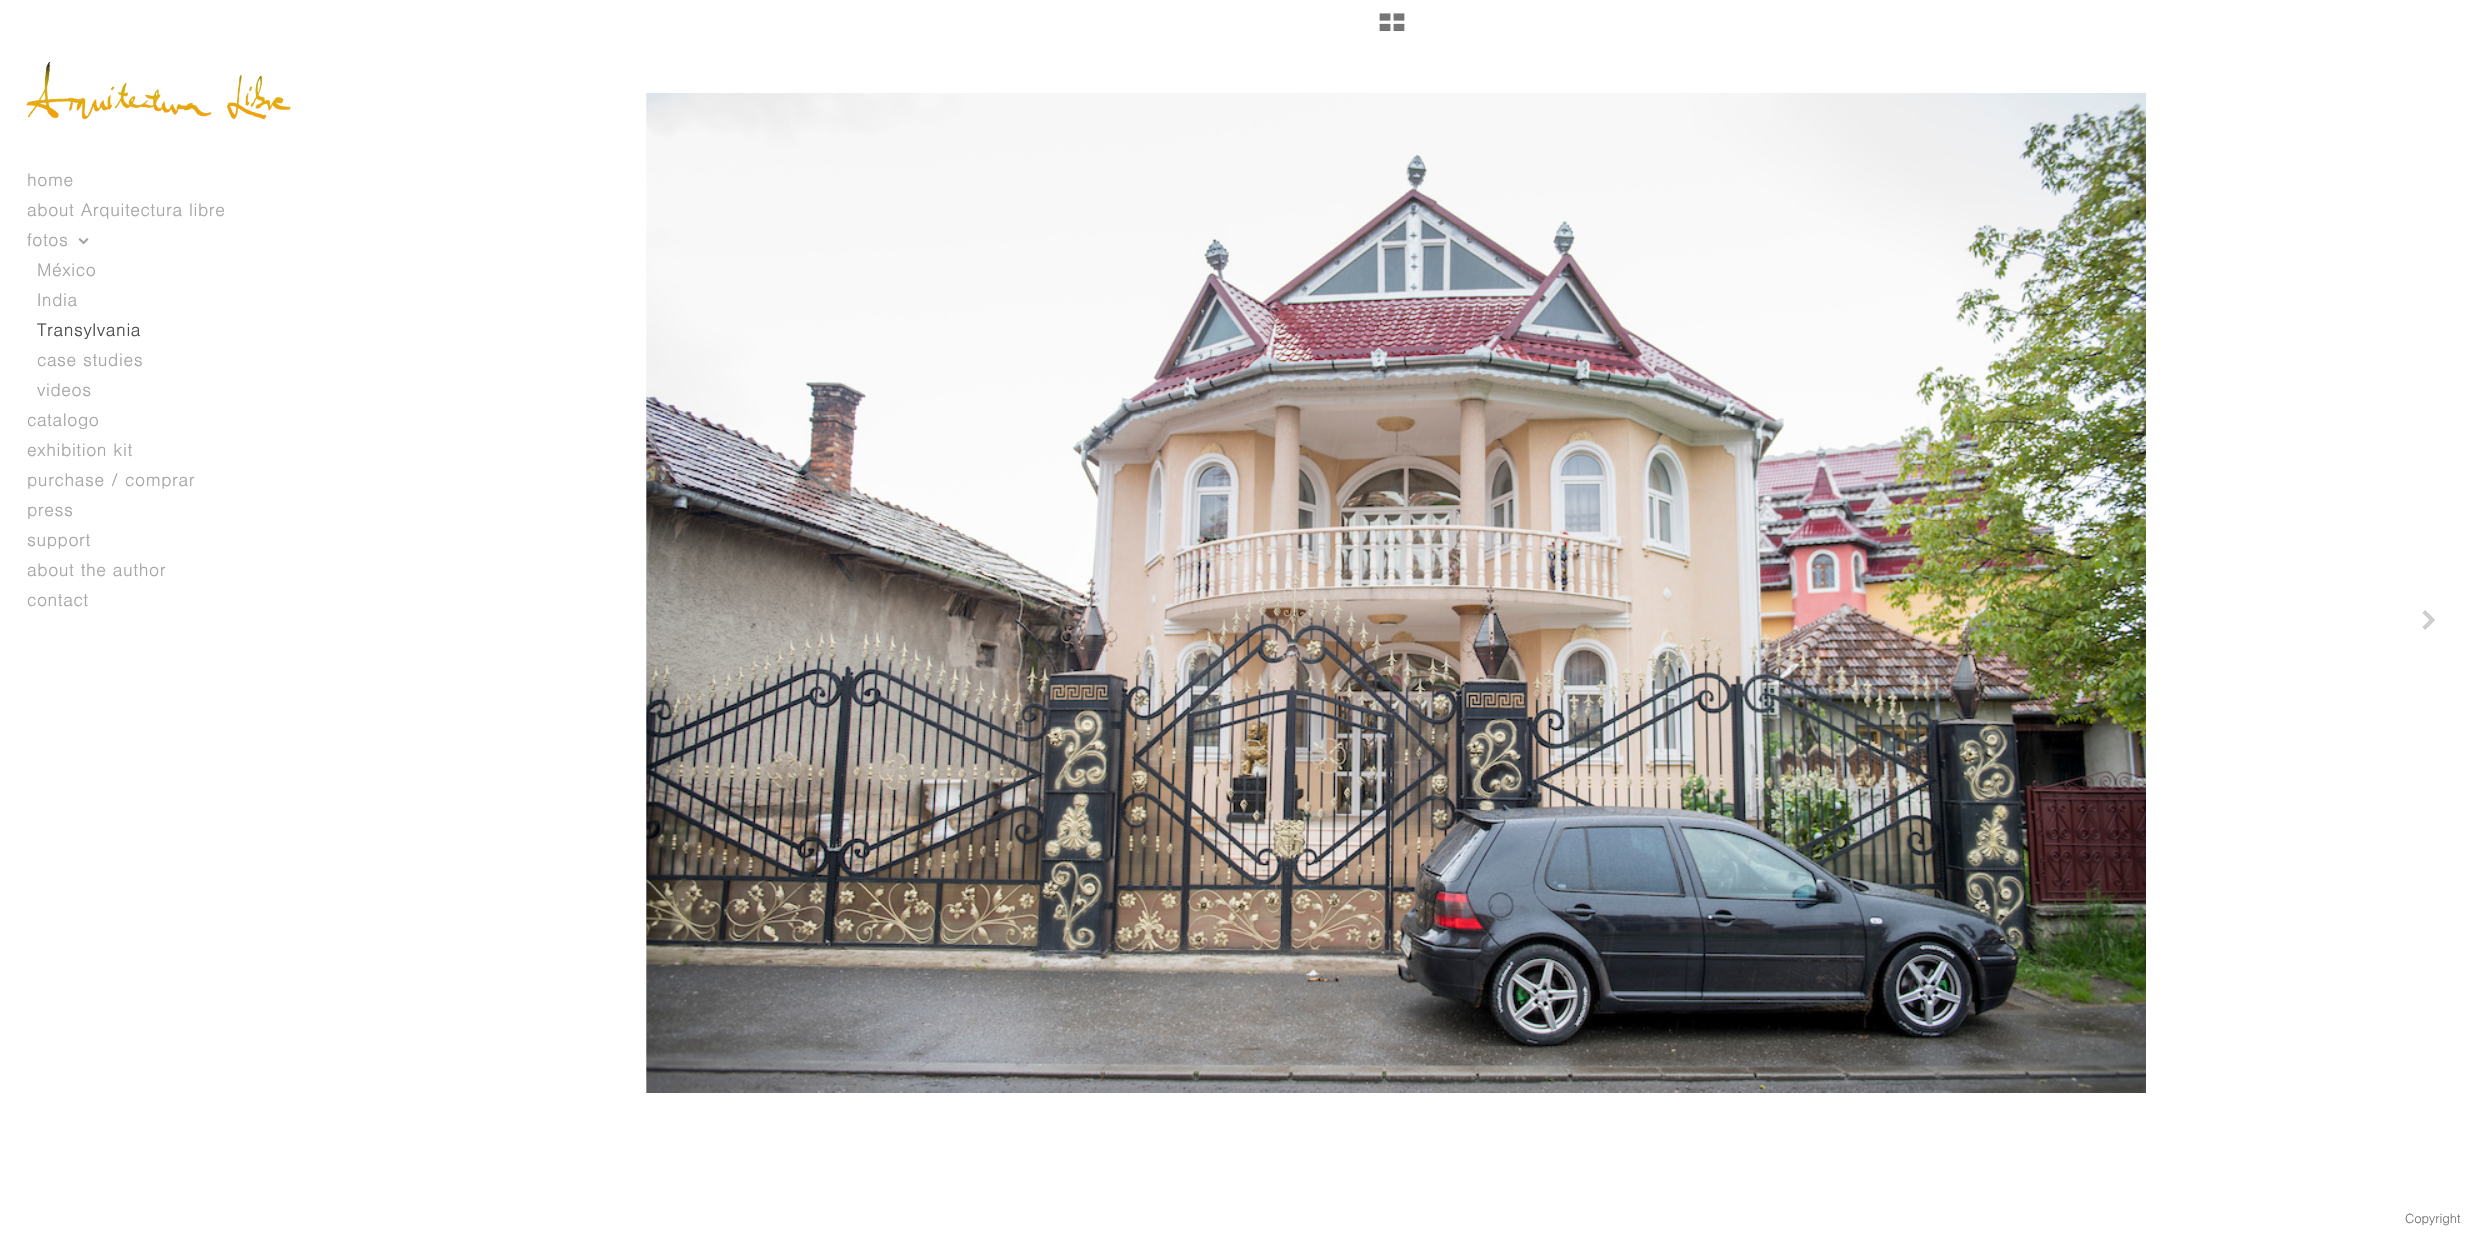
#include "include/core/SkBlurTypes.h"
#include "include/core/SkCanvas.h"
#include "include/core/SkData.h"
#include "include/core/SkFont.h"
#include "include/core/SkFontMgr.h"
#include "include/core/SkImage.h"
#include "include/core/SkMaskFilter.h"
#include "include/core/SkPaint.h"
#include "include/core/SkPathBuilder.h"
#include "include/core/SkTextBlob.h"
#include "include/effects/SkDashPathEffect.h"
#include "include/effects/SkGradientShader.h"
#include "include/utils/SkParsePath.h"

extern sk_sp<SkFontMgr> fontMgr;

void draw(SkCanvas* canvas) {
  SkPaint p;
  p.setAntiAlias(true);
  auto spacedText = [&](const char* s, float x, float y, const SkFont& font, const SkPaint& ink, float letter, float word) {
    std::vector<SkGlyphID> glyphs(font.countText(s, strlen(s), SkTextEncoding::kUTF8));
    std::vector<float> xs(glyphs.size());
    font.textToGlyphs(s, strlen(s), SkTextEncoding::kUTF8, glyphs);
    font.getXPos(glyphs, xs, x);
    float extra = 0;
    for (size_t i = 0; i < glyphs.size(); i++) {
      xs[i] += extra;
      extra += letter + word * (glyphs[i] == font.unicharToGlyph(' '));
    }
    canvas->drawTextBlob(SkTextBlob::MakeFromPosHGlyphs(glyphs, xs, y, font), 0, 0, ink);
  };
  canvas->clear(SK_ColorWHITE);
  canvas->drawImageRect(SkImages::DeferredFromEncodedData(SkData::MakeFromFileName("images/1.png")), SkRect::MakeLTRB(1379, 13, 1405, 31), SkSamplingOptions());
  canvas->drawImageRect(SkImages::DeferredFromEncodedData(SkData::MakeFromFileName("images/2.png")), SkRect::MakeLTRB(26, 61, 291, 120), SkSamplingOptions());
  canvas->drawImageRect(SkImages::DeferredFromEncodedData(SkData::MakeFromFileName("images/3.png")), SkRect::MakeLTRB(78, 238, 89, 245), SkSamplingOptions());
  canvas->drawImageRect(SkImages::DeferredFromEncodedData(SkData::MakeFromFileName("images/4.png")), SkRect::MakeLTRB(646, 93, 2146, 1093), SkSamplingOptions());
  canvas->drawImageRect(SkImages::DeferredFromEncodedData(SkData::MakeFromFileName("images/5.png")), SkRect::MakeLTRB(2422, 610, 2435, 630), SkSamplingOptions());
  SkFont font1(fontMgr->matchFamilyStyle("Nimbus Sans", SkFontStyle(300, SkFontStyle::kNormal_Width, SkFontStyle::kUpright_Slant)), 18.75f);
  font1.setSubpixel(true);
  p.setColor(SkColorSetRGB(166, 166, 166));
  spacedText("home", 27, 186, font1, p, 0.6f, 0);
  spacedText("about Arquitectura libre", 27, 216, font1, p, 0.6f, 0);
  spacedText("fotos", 27, 246, font1, p, 0.6f, 0);
  spacedText("México", 37, 276, font1, p, 0.6f, 0);
  spacedText("India", 37, 306, font1, p, 0.6f, 0);
  p.setColor(SkColorSetRGB(76, 76, 76));
  spacedText("Transylvania", 37, 336, font1, p, 0.6f, 0);
  p.setColor(SkColorSetRGB(166, 166, 166));
  spacedText("case studies", 37, 366, font1, p, 0.6f, 0);
  spacedText("videos", 37, 396, font1, p, 0.6f, 0);
  spacedText("catalogo", 27, 426, font1, p, 0.6f, 0);
  spacedText("exhibition kit", 27, 456, font1, p, 0.6f, 0);
  spacedText("purchase / comprar", 27, 486, font1, p, 0.6f, 0);
  spacedText("press", 27, 516, font1, p, 0.6f, 0);
  spacedText("support", 27, 546, font1, p, 0.6f, 0);
  spacedText("about the author", 27, 576, font1, p, 0.6f, 0);
  spacedText("contact", 27, 606, font1, p, 0.6f, 0);
  SkFont font2(fontMgr->matchFamilyStyle("Nimbus Sans", SkFontStyle(300, SkFontStyle::kNormal_Width, SkFontStyle::kUpright_Slant)), 13.75f);
  font2.setSubpixel(true);
  p.setColor(SkColorSetRGB(118, 118, 118));
  canvas->drawString("Copyright", 2405, 1223, font2, p);
}
